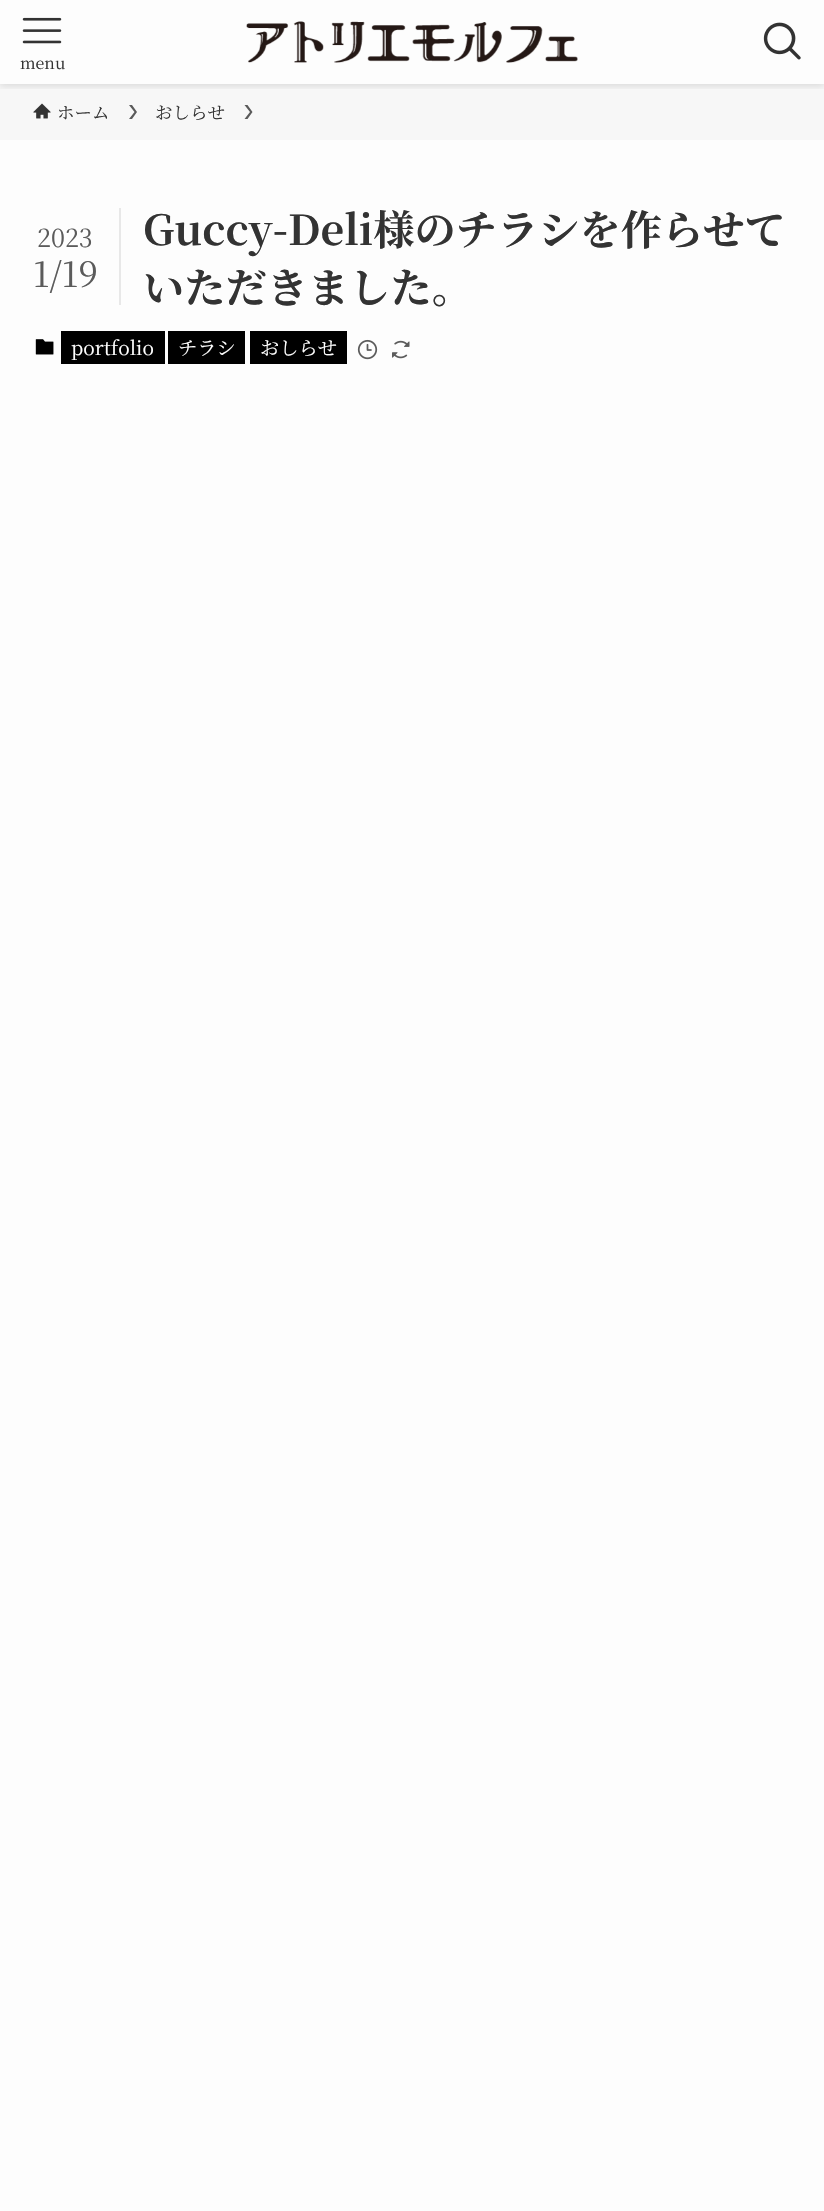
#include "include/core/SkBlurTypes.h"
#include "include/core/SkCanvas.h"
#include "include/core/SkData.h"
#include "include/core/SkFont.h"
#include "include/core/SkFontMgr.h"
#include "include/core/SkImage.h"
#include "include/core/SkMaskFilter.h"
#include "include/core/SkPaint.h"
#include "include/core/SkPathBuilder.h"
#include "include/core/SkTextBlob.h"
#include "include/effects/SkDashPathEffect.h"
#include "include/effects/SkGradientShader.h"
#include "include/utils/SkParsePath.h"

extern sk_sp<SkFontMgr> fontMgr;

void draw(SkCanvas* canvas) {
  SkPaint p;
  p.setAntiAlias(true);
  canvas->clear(SkColorSetRGB(253, 253, 253));
  p.setColor(SkColorSetRGB(247, 247, 247));
  canvas->drawRect(SkRect::MakeLTRB(0, 84, 824, 140), p);
  canvas->save();
  canvas->clipRect(SkRect::MakeLTRB(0, 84, 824, 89));
  p.setColor(SkColorSetARGB(31, 0, 0, 0));
  p.setMaskFilter(SkMaskFilter::MakeBlur(kNormal_SkBlurStyle, 3.5f));
  canvas->drawRect(SkRect::MakeLTRB(0, 2, 824, 86), p);
  p.setMaskFilter(nullptr);
  canvas->restore();
  canvas->drawImageRect(SkImages::DeferredFromEncodedData(SkData::MakeFromFileName("images/1.png")), SkRect::MakeLTRB(246, 21, 578, 63), SkSamplingOptions());
  canvas->drawImageRect(SkImages::DeferredFromEncodedData(SkData::MakeFromFileName("images/2.png")), SkRect::MakeLTRB(763, 22, 801, 60), SkSamplingOptions());
  canvas->drawImageRect(SkImages::DeferredFromEncodedData(SkData::MakeFromFileName("images/3.png")), SkRect::MakeLTRB(22, 17, 62, 44), SkSamplingOptions());
  canvas->drawImageRect(SkImages::DeferredFromEncodedData(SkData::MakeFromFileName("images/4.png")), SkRect::MakeLTRB(33, 103, 51, 119), SkSamplingOptions());
  p.setColor(SkColorSetRGB(90, 90, 90));
  canvas->drawPath(SkPathBuilder().moveTo(132, 105).lineTo(129, 105).lineTo(134.5f, 112).lineTo(129, 119).lineTo(132, 119).lineTo(137, 112).close().detach(), p);
  canvas->drawPath(SkPathBuilder().moveTo(247.5f, 105).lineTo(244.5f, 105).lineTo(250, 112).lineTo(244.5f, 119).lineTo(247.5f, 119).lineTo(252.5f, 112).close().detach(), p);
  p.setColor(SkColorSetRGB(232, 232, 232));
  canvas->drawRect(SkRect::MakeLTRB(119, 208, 121, 305), p);
  canvas->drawImageRect(SkImages::DeferredFromEncodedData(SkData::MakeFromFileName("images/5.png")), SkRect::MakeLTRB(35, 339, 54, 355), SkSamplingOptions());
  p.setColor(SK_ColorBLACK);
  canvas->drawRect(SkRect::MakeLTRB(61, 331, 165, 364), p);
  canvas->drawRect(SkRect::MakeLTRB(168, 331, 245, 364), p);
  canvas->drawRect(SkRect::MakeLTRB(250, 331, 347, 364), p);
  canvas->drawImageRect(SkImages::DeferredFromEncodedData(SkData::MakeFromFileName("images/6.png")), SkRect::MakeLTRB(357, 339, 378, 360), SkSamplingOptions());
  canvas->drawImageRect(SkImages::DeferredFromEncodedData(SkData::MakeFromFileName("images/7.png")), SkRect::MakeLTRB(392, 340, 410, 359), SkSamplingOptions());
  SkFont font1(fontMgr->matchFamilyStyle("Noto Serif JP", SkFontStyle::Normal()), 16);
  font1.setSubpixel(true);
  p.setColor(SkColorSetRGB(51, 51, 51));
  canvas->drawString("menu", 20, 69, font1, p);
  SkFont font2(fontMgr->matchFamilyStyle("Noto Serif JP", SkFontStyle::Normal()), 17.5f);
  font2.setSubpixel(true);
  canvas->drawString("ホーム", 57, 119, font2, p);
  canvas->drawString("おしらせ", 155, 119, font2, p);
  SkFont font3(fontMgr->matchFamilyStyle("Noto Serif JP", SkFontStyle::Normal()), 25);
  font3.setSubpixel(true);
  p.setColor(SkColorSetRGB(91, 91, 91));
  canvas->drawString("2023", 37, 247, font3, p);
  SkFont font4(fontMgr->matchFamilyStyle("Noto Serif JP", SkFontStyle::Normal()), 35);
  font4.setSubpixel(true);
  canvas->drawString("1/19", 33, 287, font4, p);
  SkFont font5(fontMgr->matchFamilyStyle("Noto Serif JP", SkFontStyle::Bold()), 41.25f);
  font5.setSubpixel(true);
  p.setColor(SkColorSetRGB(51, 51, 51));
  canvas->drawString("Guccy-Deli様のチラシを作らせて", 143, 245, font5, p);
  canvas->drawString("いただきました。", 143, 303, font5, p);
  SkFont font6(fontMgr->matchFamilyStyle("Noto Serif JP", SkFontStyle::Normal()), 19.25f);
  font6.setSubpixel(true);
  p.setColor(SK_ColorWHITE);
  canvas->drawString("portfolio", 71, 355, font6, p);
  canvas->drawString("チラシ", 178, 355, font6, p);
  canvas->drawString("おしらせ", 260, 355, font6, p);
}
